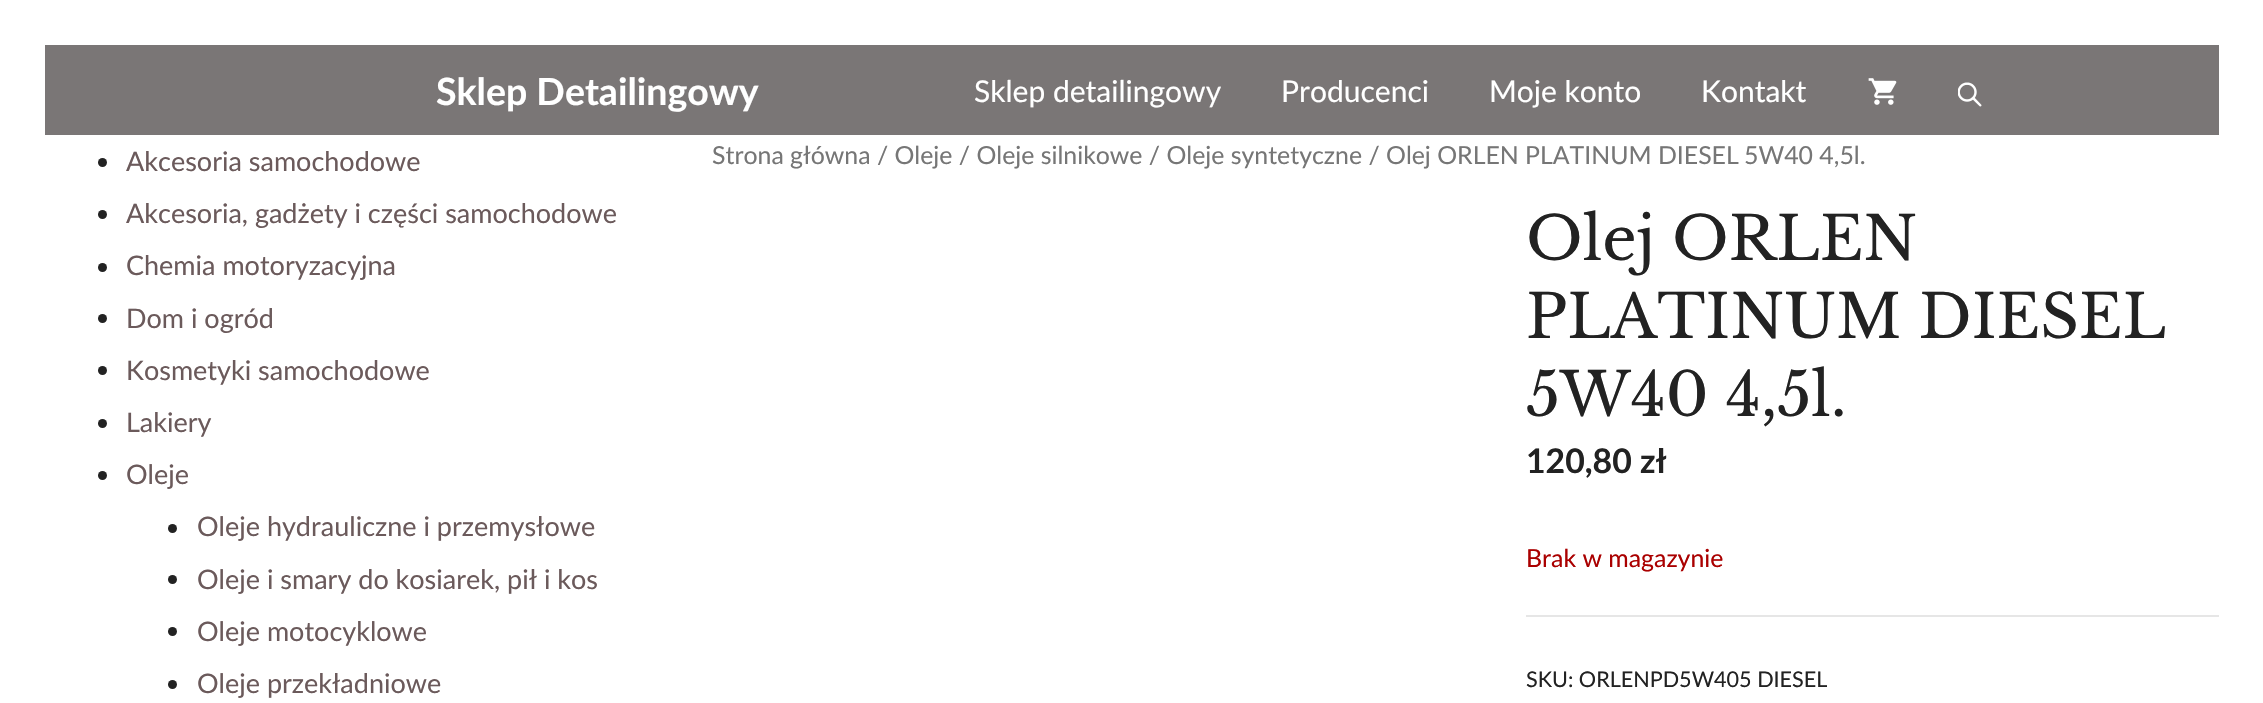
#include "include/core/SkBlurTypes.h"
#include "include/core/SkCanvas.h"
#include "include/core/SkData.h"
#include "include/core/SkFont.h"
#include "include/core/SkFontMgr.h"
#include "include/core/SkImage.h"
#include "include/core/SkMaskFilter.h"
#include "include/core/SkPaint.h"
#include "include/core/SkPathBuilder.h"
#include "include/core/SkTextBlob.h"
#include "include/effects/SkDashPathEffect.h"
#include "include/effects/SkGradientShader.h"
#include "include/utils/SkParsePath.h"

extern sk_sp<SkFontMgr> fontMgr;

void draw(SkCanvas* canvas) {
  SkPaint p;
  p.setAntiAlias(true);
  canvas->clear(SK_ColorWHITE);
  p.setColor(SkColorSetRGB(122, 118, 118));
  canvas->drawRect(SkRect::MakeLTRB(45, 45, 2219, 135), p);
  canvas->drawImageRect(SkImages::DeferredFromEncodedData(SkData::MakeFromFileName("images/1.png")), SkRect::MakeLTRB(1868, 78, 1897, 105), SkSamplingOptions());
  canvas->drawImageRect(SkImages::DeferredFromEncodedData(SkData::MakeFromFileName("images/2.png")), SkRect::MakeLTRB(1958, 82, 1982, 107), SkSamplingOptions());
  p.setColor(SkColorSetRGB(34, 34, 34));
  canvas->drawCircle(102.5f, 162.5f, 4.5f, p);
  canvas->drawCircle(102.5f, 214.5f, 4.5f, p);
  canvas->drawCircle(102.5f, 267.5f, 4.5f, p);
  canvas->drawCircle(102.5f, 318.5f, 4.5f, p);
  canvas->drawCircle(102.5f, 370.5f, 4.5f, p);
  canvas->drawCircle(102.5f, 423.5f, 4.5f, p);
  canvas->drawCircle(102.5f, 475.5f, 4.5f, p);
  canvas->drawCircle(172.5f, 528.5f, 4.5f, p);
  canvas->drawCircle(172.5f, 579.5f, 4.5f, p);
  canvas->drawCircle(172.5f, 631.5f, 4.5f, p);
  canvas->drawCircle(172.5f, 684.5f, 4.5f, p);
  p.setColor(SkColorSetRGB(230, 230, 230));
  canvas->drawRect(SkRect::MakeLTRB(1526, 615, 2219, 617), p);
  SkFont font1(fontMgr->matchFamilyStyle("Lato", SkFontStyle::Bold()), 37.5f);
  font1.setSubpixel(true);
  p.setColor(SK_ColorWHITE);
  canvas->drawString("Sklep Detailingowy", 436, 105, font1, p);
  SkFont font2(fontMgr->matchFamilyStyle("Lato", SkFontStyle::Normal()), 30);
  font2.setSubpixel(true);
  canvas->drawString("Sklep detailingowy", 974, 102, font2, p);
  canvas->drawString("Producenci", 1281, 102, font2, p);
  canvas->drawString("Moje konto", 1489, 102, font2, p);
  canvas->drawString("Kontakt", 1701, 102, font2, p);
  SkFont font3(fontMgr->matchFamilyStyle("Lato", SkFontStyle::Normal()), 27);
  font3.setSubpixel(true);
  p.setColor(SkColorSetRGB(107, 90, 91));
  canvas->drawString("Akcesoria samochodowe", 126, 171, font3, p);
  canvas->drawString("Akcesoria, gadżety i części samochodowe", 126, 223, font3, p);
  canvas->drawString("Chemia motoryzacyjna", 126, 275, font3, p);
  canvas->drawString("Dom i ogród", 126, 328, font3, p);
  canvas->drawString("Kosmetyki samochodowe", 126, 380, font3, p);
  canvas->drawString("Lakiery", 126, 432, font3, p);
  canvas->drawString("Oleje", 126, 484, font3, p);
  canvas->drawString("Oleje hydrauliczne i przemysłowe", 197, 536, font3, p);
  canvas->drawString("Oleje i smary do kosiarek, pił i kos", 197, 589, font3, p);
  canvas->drawString("Oleje motocyklowe", 197, 641, font3, p);
  canvas->drawString("Oleje przekładniowe", 197, 693, font3, p);
  SkFont font4(fontMgr->matchFamilyStyle("Lato", SkFontStyle::Normal()), 24.85f);
  font4.setSubpixel(true);
  p.setColor(SkColorSetRGB(118, 118, 118));
  canvas->drawString("Strona główna / Oleje / Oleje silnikowe / Oleje syntetyczne / Olej ORLEN PLATINUM DIESEL", 712, 164, font4, p);
  canvas->drawString("5W40 4,5l.", 1744, 164, font4, p);
  SkFont font5(fontMgr->matchFamilyStyle("Libre Baskerville", SkFontStyle::Normal()), 60);
  font5.setSubpixel(true);
  p.setColor(SkColorSetRGB(34, 34, 34));
  canvas->drawString("Olej ORLEN", 1526, 260, font5, p);
  canvas->drawString("PLATINUM DIESEL", 1526, 338, font5, p);
  canvas->drawString("5W40 4,5l.", 1526, 416, font5, p);
  SkFont font6(fontMgr->matchFamilyStyle("Lato", SkFontStyle::Bold()), 33.75f);
  font6.setSubpixel(true);
  canvas->drawString("120,80 zł", 1526, 473, font6, p);
  p.setColor(SkColorSetRGB(170, 0, 0));
  canvas->drawString("Brak w magazynie", 1526, 567, font4, p);
  SkFont font7(fontMgr->matchFamilyStyle("Lato", SkFontStyle::Normal()), 21.6f);
  font7.setSubpixel(true);
  p.setColor(SkColorSetRGB(34, 34, 34));
  canvas->drawString("SKU: ORLENPD5W405 DIESEL", 1526, 687, font7, p);
}
